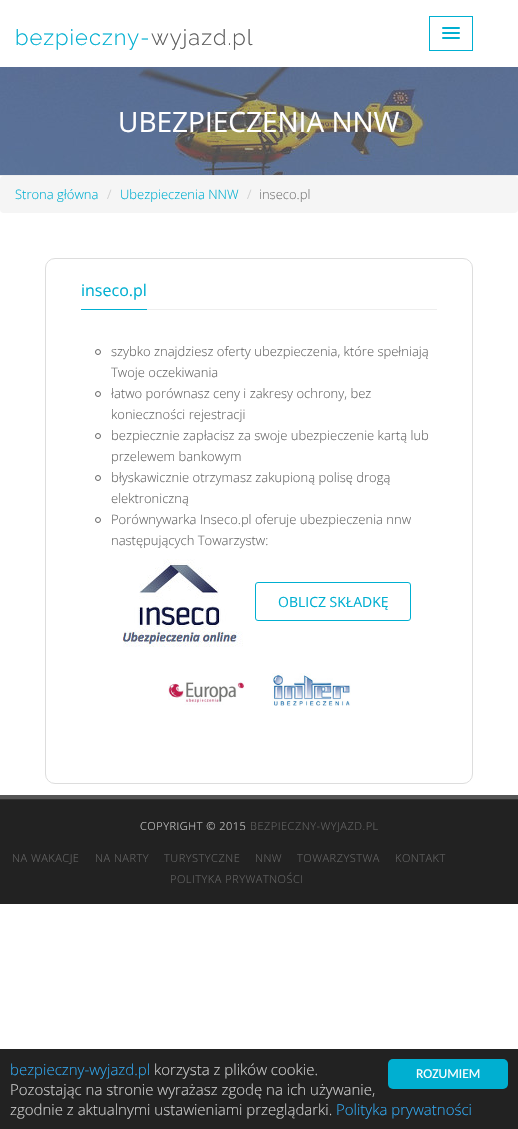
#include "include/core/SkBlurTypes.h"
#include "include/core/SkCanvas.h"
#include "include/core/SkData.h"
#include "include/core/SkFont.h"
#include "include/core/SkFontMgr.h"
#include "include/core/SkImage.h"
#include "include/core/SkMaskFilter.h"
#include "include/core/SkPaint.h"
#include "include/core/SkPathBuilder.h"
#include "include/core/SkTextBlob.h"
#include "include/effects/SkDashPathEffect.h"
#include "include/effects/SkGradientShader.h"
#include "include/utils/SkParsePath.h"

extern sk_sp<SkFontMgr> fontMgr;

void draw(SkCanvas* canvas) {
  SkPaint p;
  p.setAntiAlias(true);
  auto spacedText = [&](const char* s, float x, float y, const SkFont& font, const SkPaint& ink, float letter, float word) {
    std::vector<SkGlyphID> glyphs(font.countText(s, strlen(s), SkTextEncoding::kUTF8));
    std::vector<float> xs(glyphs.size());
    font.textToGlyphs(s, strlen(s), SkTextEncoding::kUTF8, glyphs);
    font.getXPos(glyphs, xs, x);
    float extra = 0;
    for (size_t i = 0; i < glyphs.size(); i++) {
      xs[i] += extra;
      extra += letter + word * (glyphs[i] == font.unicharToGlyph(' '));
    }
    canvas->drawTextBlob(SkTextBlob::MakeFromPosHGlyphs(glyphs, xs, y, font), 0, 0, ink);
  };
  canvas->clear(SK_ColorWHITE);
  p.setStyle(SkPaint::kStroke_Style);
  p.setStrokeWidth(1);
  p.setColor(SkColorSetRGB(0, 175, 209));
  canvas->drawRect(SkRect::MakeLTRB(429.5f, 16.5f, 472.5f, 50.5f), p);
  p.setStyle(SkPaint::kFill_Style);
  canvas->drawRoundRect(SkRect::MakeLTRB(442, 27, 460, 29), 1, 1, p);
  canvas->drawRoundRect(SkRect::MakeLTRB(442, 32, 460, 34), 1, 1, p);
  canvas->drawRoundRect(SkRect::MakeLTRB(442, 37, 460, 39), 1, 1, p);
  canvas->drawImageRect(SkImages::DeferredFromEncodedData(SkData::MakeFromFileName("images/1.png")), SkRect::MakeLTRB(0, 67, 518, 175), SkSamplingOptions());
  p.setColor(SkColorSetRGB(238, 238, 238));
  canvas->drawRect(SkRect::MakeLTRB(0, 175, 518, 176), p);
  p.setColor(SkColorSetRGB(245, 245, 245));
  canvas->drawRoundRect(SkRect::MakeLTRB(0, 176, 518, 213), 4, 4, p);
  p.setStyle(SkPaint::kStroke_Style);
  p.setColor(SkColorSetRGB(221, 221, 221));
  canvas->drawRoundRect(SkRect::MakeLTRB(45.5f, 258.5f, 472.5f, 783.5f), 9.5f, 9.5f, p);
  p.setStyle(SkPaint::kFill_Style);
  p.setColor(SkColorSetRGB(238, 238, 238));
  canvas->drawRect(SkRect::MakeLTRB(147, 309, 437, 310), p);
  p.setColor(SkColorSetRGB(0, 175, 209));
  canvas->drawRect(SkRect::MakeLTRB(81, 309, 147, 310), p);
  p.setStyle(SkPaint::kStroke_Style);
  p.setColor(SkColorSetRGB(102, 102, 102));
  canvas->drawCircle(98, 352, 2.5f, p);
  canvas->drawCircle(98, 394, 2.5f, p);
  canvas->drawCircle(98, 436, 2.5f, p);
  canvas->drawCircle(98, 478, 2.5f, p);
  canvas->drawCircle(98, 520, 2.5f, p);
  canvas->drawImageRect(SkImages::DeferredFromEncodedData(SkData::MakeFromFileName("images/2.png")), SkRect::MakeLTRB(123, 559, 243, 647), SkSamplingOptions());
  p.setColor(SkColorSetRGB(0, 175, 209));
  canvas->drawRoundRect(SkRect::MakeLTRB(255.5f, 582.5f, 410.5f, 620.5f), 2.5f, 2.5f, p);
  canvas->drawImageRect(SkImages::DeferredFromEncodedData(SkData::MakeFromFileName("images/3.png")), SkRect::MakeLTRB(168, 680, 245, 705), SkSamplingOptions());
  canvas->drawImageRect(SkImages::DeferredFromEncodedData(SkData::MakeFromFileName("images/4.png")), SkRect::MakeLTRB(272, 673, 351, 706), SkSamplingOptions());
  p.setStyle(SkPaint::kFill_Style);
  p.setColor(SkColorSetRGB(34, 34, 34));
  canvas->drawRect(SkRect::MakeLTRB(0, 800, 518, 904), p);
  p.setColor(SkColorSetRGB(85, 85, 85));
  canvas->drawRect(SkRect::MakeLTRB(0, 795, 518, 799), p);
  p.setColor(SkColorSetRGB(47, 47, 47));
  canvas->drawRect(SkRect::MakeLTRB(0, 799, 518, 800), p);
  p.setColor(SkColorSetRGB(34, 34, 34));
  canvas->drawRect(SkRect::MakeLTRB(0, 1049, 518, 1129), p);
  p.setColor(SkColorSetRGB(0, 175, 209));
  canvas->drawRoundRect(SkRect::MakeLTRB(388, 1059, 508, 1089), 5, 5, p);
  SkFont font1(fontMgr->matchFamilyStyle("Raleway", SkFontStyle(300, SkFontStyle::kNormal_Width, SkFontStyle::kUpright_Slant)), 22);
  font1.setSubpixel(true);
  spacedText("bezpieczny-", 15, 45, font1, p, 1, 0);
  p.setColor(SkColorSetRGB(94, 94, 94));
  spacedText("wyjazd.pl", 151, 45, font1, p, 1, 0);
  SkFont font2(fontMgr->matchFamilyStyle("Open Sans", SkFontStyle::Normal()), 28);
  font2.setSubpixel(true);
  p.setColor(SK_ColorWHITE);
  canvas->drawString("UBEZPIECZENIA NNW", 118, 132, font2, p);
  SkFont font3(fontMgr->matchFamilyStyle("Open Sans", SkFontStyle(300, SkFontStyle::kNormal_Width, SkFontStyle::kUpright_Slant)), 13);
  font3.setSubpixel(true);
  p.setColor(SkColorSetRGB(0, 175, 209));
  canvas->drawString("Strona główna", 15, 199, font3, p);
  p.setColor(SkColorSetRGB(204, 204, 204));
  canvas->drawString("/", 107, 199, font3, p);
  p.setColor(SkColorSetRGB(0, 175, 209));
  canvas->drawString("Ubezpieczenia NNW", 120, 199, font3, p);
  p.setColor(SkColorSetRGB(204, 204, 204));
  canvas->drawString("/", 247, 199, font3, p);
  p.setColor(SkColorSetRGB(119, 119, 119));
  canvas->drawString("inseco.pl", 259, 199, font3, p);
  SkFont font4(fontMgr->matchFamilyStyle("Open Sans", SkFontStyle::Normal()), 16);
  font4.setSubpixel(true);
  p.setColor(SkColorSetRGB(0, 175, 209));
  canvas->drawString("inseco.pl", 81, 296, font4, p);
  p.setColor(SkColorSetRGB(102, 102, 102));
  canvas->drawString("szybko znajdziesz oferty ubezpieczenia, które spełniają", 111, 356, font3, p);
  canvas->drawString("Twoje oczekiwania", 111, 377, font3, p);
  canvas->drawString("łatwo porównasz ceny i zakresy ochrony, bez", 111, 398, font3, p);
  canvas->drawString("konieczności rejestracji", 111, 419, font3, p);
  canvas->drawString("bezpiecznie zapłacisz za swoje ubezpieczenie kartą lub", 111, 440, font3, p);
  canvas->drawString("przelewem bankowym", 111, 461, font3, p);
  canvas->drawString("błyskawicznie otrzymasz zakupioną polisę drogą", 111, 482, font3, p);
  canvas->drawString("elektroniczną", 111, 503, font3, p);
  canvas->drawString("Porównywarka Inseco.pl oferuje ubezpieczenia nnw", 111, 524, font3, p);
  canvas->drawString("następujących Towarzystw:", 111, 545, font3, p);
  SkFont font5(fontMgr->matchFamilyStyle("Open Sans", SkFontStyle::Normal()), 14);
  font5.setSubpixel(true);
  p.setColor(SkColorSetRGB(0, 175, 209));
  canvas->drawString("OBLICZ SKŁADKĘ", 278, 607, font5, p);
  SkFont font6(fontMgr->matchFamilyStyle("Open Sans", SkFontStyle(300, SkFontStyle::kNormal_Width, SkFontStyle::kUpright_Slant)), 11);
  font6.setSubpixel(true);
  p.setColor(SkColorSetRGB(204, 204, 204));
  spacedText("COPYRIGHT © 2015", 140, 830, font6, p, 0.5f, 0);
  p.setColor(SkColorSetRGB(102, 102, 102));
  spacedText("BEZPIECZNY-WYJAZD.PL", 250, 830, font6, p, 0.5f, 0);
  spacedText("NA WAKACJE", 12, 862, font6, p, 0.5f, 0);
  spacedText("NA NARTY", 95, 862, font6, p, 0.5f, 0);
  spacedText("TURYSTYCZNE", 164, 862, font6, p, 0.5f, 0);
  spacedText("NNW", 255, 862, font6, p, 0.5f, 0);
  spacedText("TOWARZYSTWA", 297, 862, font6, p, 0.5f, 0);
  spacedText("KONTAKT", 395, 862, font6, p, 0.5f, 0);
  spacedText("POLITYKA PRYWATNOŚCI", 170, 883, font6, p, 0.5f, 0);
  SkFont font7(fontMgr->matchFamilyStyle("Open Sans", SkFontStyle(300, SkFontStyle::kNormal_Width, SkFontStyle::kUpright_Slant)), 15);
  font7.setSubpixel(true);
  p.setColor(SkColorSetRGB(49, 168, 240));
  canvas->drawString("bezpieczny-wyjazd.pl", 10, 1075, font7, p);
  p.setColor(SkColorSetRGB(204, 204, 204));
  canvas->drawString("korzysta z plików cookie.", 154, 1075, font7, p);
  canvas->drawString("Pozostając na stronie wyrażasz zgodę na ich używanie,", 10, 1095, font7, p);
  canvas->drawString("zgodnie z aktualnymi ustawieniami przeglądarki.", 10, 1115, font7, p);
  p.setColor(SkColorSetRGB(49, 168, 240));
  canvas->drawString("Polityka prywatności", 336, 1115, font7, p);
  SkFont font8(fontMgr->matchFamilyStyle("Carlito", SkFontStyle::Normal()), 13.5f);
  font8.setSubpixel(true);
  p.setColor(SK_ColorWHITE);
  canvas->drawString("ROZUMIEM", 416, 1078, font8, p);
}
